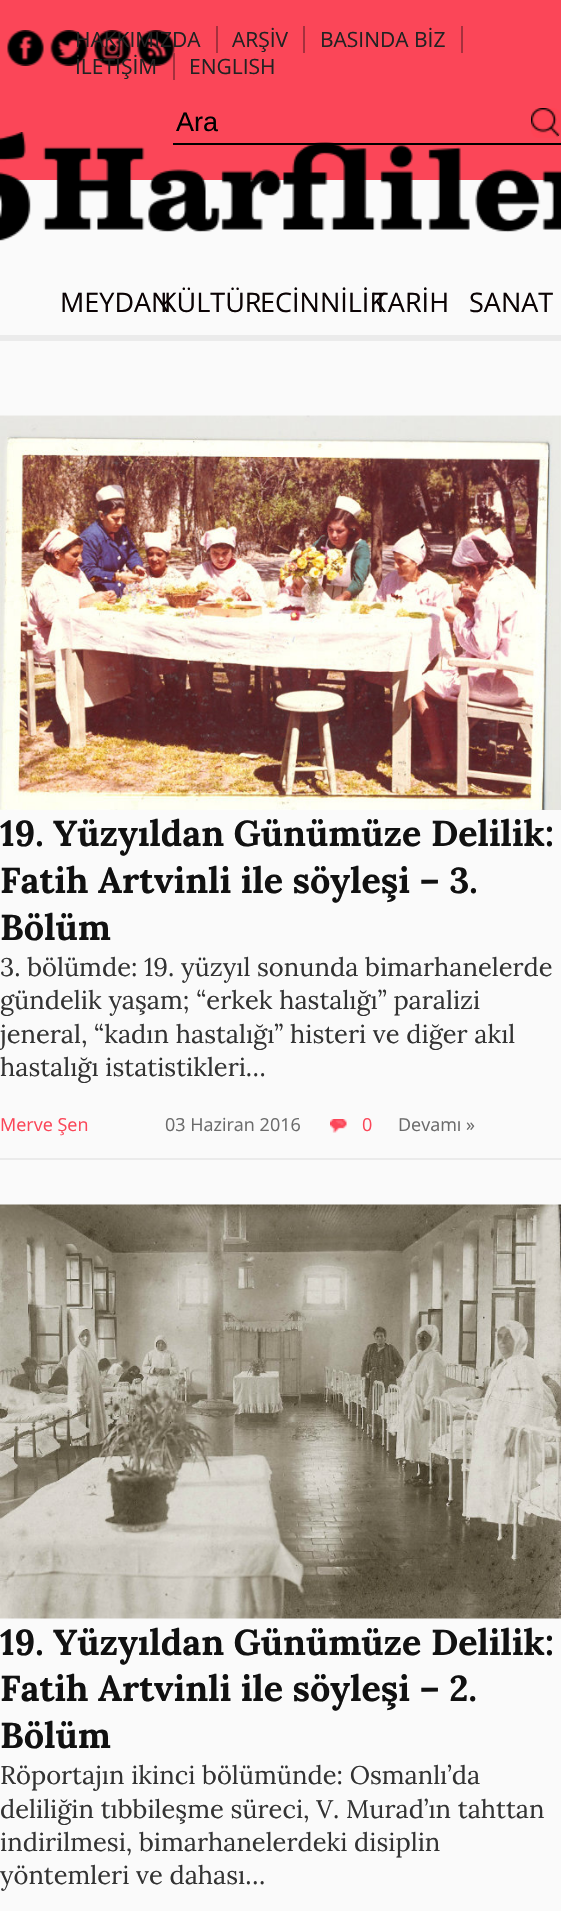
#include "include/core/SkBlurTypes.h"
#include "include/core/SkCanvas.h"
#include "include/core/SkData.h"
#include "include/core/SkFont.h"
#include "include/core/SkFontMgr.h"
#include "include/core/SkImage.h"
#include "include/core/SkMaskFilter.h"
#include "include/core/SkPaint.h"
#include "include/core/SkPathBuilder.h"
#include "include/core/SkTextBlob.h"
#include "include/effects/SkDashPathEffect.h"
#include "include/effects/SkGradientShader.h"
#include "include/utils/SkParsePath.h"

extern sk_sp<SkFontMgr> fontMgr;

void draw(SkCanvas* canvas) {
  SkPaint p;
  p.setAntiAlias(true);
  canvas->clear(SkColorSetRGB(250, 250, 250));
  p.setColor(SkColorSetRGB(251, 70, 88));
  canvas->drawRect(SkRect::MakeLTRB(0, 0, 561, 180), p);
  p.setColor(SkColorSetRGB(166, 48, 61));
  canvas->drawRect(SkRect::MakeLTRB(216, 26, 218, 53), p);
  canvas->drawRect(SkRect::MakeLTRB(303, 26, 305, 53), p);
  canvas->drawRect(SkRect::MakeLTRB(461, 26, 463, 53), p);
  canvas->drawImageRect(SkImages::DeferredFromEncodedData(SkData::MakeFromFileName("images/4.png")), SkRect::MakeLTRB(137, 30, 175, 66), SkSamplingOptions());
  canvas->drawRect(SkRect::MakeLTRB(173, 53, 175, 80), p);
  canvas->drawImageRect(SkImages::DeferredFromEncodedData(SkData::MakeFromFileName("images/1.png")), SkRect::MakeLTRB(7, 30, 44, 66), SkSamplingOptions());
  canvas->drawImageRect(SkImages::DeferredFromEncodedData(SkData::MakeFromFileName("images/2.png")), SkRect::MakeLTRB(50, 30, 88, 66), SkSamplingOptions());
  canvas->drawImageRect(SkImages::DeferredFromEncodedData(SkData::MakeFromFileName("images/3.png")), SkRect::MakeLTRB(94, 30, 131, 66), SkSamplingOptions());
  canvas->drawImageRect(SkImages::DeferredFromEncodedData(SkData::MakeFromFileName("images/6.png")), SkRect::MakeLTRB(0, 132, 561, 241), SkSamplingOptions());
  p.setColor(SK_ColorBLACK);
  canvas->drawRect(SkRect::MakeLTRB(173, 143, 561, 145), p);
  canvas->drawImageRect(SkImages::DeferredFromEncodedData(SkData::MakeFromFileName("images/5.png")), SkRect::MakeLTRB(531, 108, 561, 138), SkSamplingOptions());
  p.setColor(SkColorSetRGB(235, 235, 235));
  canvas->drawRect(SkRect::MakeLTRB(0, 335, 561, 341), p);
  canvas->drawImageRect(SkImages::DeferredFromEncodedData(SkData::MakeFromFileName("images/7.png")), SkRect::MakeLTRB(0, 415, 561, 810), SkSamplingOptions());
  canvas->drawImageRect(SkImages::DeferredFromEncodedData(SkData::MakeFromFileName("images/8.png")), SkRect::MakeLTRB(330, 1119, 347, 1133), SkSamplingOptions());
  canvas->drawRect(SkRect::MakeLTRB(0, 1158, 561, 1160), p);
  canvas->drawImageRect(SkImages::DeferredFromEncodedData(SkData::MakeFromFileName("images/9.png")), SkRect::MakeLTRB(0, 1204, 561, 1619), SkSamplingOptions());
  SkFont font1(fontMgr->matchFamilyStyle("Open Sans", SkFontStyle::Normal()), 21);
  font1.setSubpixel(true);
  p.setColor(SkColorSetRGB(34, 34, 34));
  canvas->drawString("HAKKIMIZDA", 75, 47, font1, p);
  canvas->drawString("ARŞİV", 232, 47, font1, p);
  canvas->drawString("BASINDA BİZ", 320, 47, font1, p);
  canvas->drawString("İLETİŞİM", 75, 74, font1, p);
  canvas->drawString("ENGLISH", 189, 74, font1, p);
  SkFont font2(fontMgr->matchFamilyStyle("Liberation Sans", SkFontStyle::Normal()), 27);
  font2.setSubpixel(true);
  p.setColor(SK_ColorBLACK);
  canvas->drawString("Ara", 176, 131, font2, p);
  SkFont font3(fontMgr->matchFamilyStyle("Open Sans", SkFontStyle::Normal()), 27);
  font3.setSubpixel(true);
  p.setColor(SkColorSetRGB(11, 3, 4));
  canvas->drawString("MEYDAN", 60, 312, font3, p);
  canvas->drawString("KÜLTÜR", 160, 312, font3, p);
  canvas->drawString("ECİNNİLİK", 260, 312, font3, p);
  canvas->drawString("TARİH", 373, 312, font3, p);
  canvas->drawString("SANAT", 469, 312, font3, p);
  SkFont font4(fontMgr->matchFamilyStyle("Lora", SkFontStyle::Bold()), 36);
  font4.setSubpixel(true);
  p.setColor(SkColorSetRGB(17, 17, 17));
  canvas->drawString("19. Yüzyıldan Günümüze Delilik:", 0, 846, font4, p);
  canvas->drawString("Fatih Artvinli ile söyleşi – 3.", 0, 893, font4, p);
  canvas->drawString("Bölüm", 0, 940, font4, p);
  SkFont font5(fontMgr->matchFamilyStyle("Lora", SkFontStyle::Normal()), 25.5f);
  font5.setSubpixel(true);
  p.setColor(SkColorSetRGB(51, 51, 51));
  canvas->drawString("3. bölümde: 19. yüzyıl sonunda bimarhanelerde", 0, 976, font5, p);
  canvas->drawString("gündelik yaşam; “erkek hastalığı” paralizi", 0, 1009, font5, p);
  canvas->drawString("jeneral, “kadın hastalığı” histeri ve diğer akıl", 0, 1043, font5, p);
  canvas->drawString("hastalığı istatistikleri…", 0, 1076, font5, p);
  SkFont font6(fontMgr->matchFamilyStyle("Open Sans", SkFontStyle::Normal()), 18);
  font6.setSubpixel(true);
  p.setColor(SkColorSetRGB(251, 70, 88));
  canvas->drawString("Merve Şen", 0, 1131, font6, p);
  p.setColor(SkColorSetRGB(107, 107, 107));
  canvas->drawString("03 Haziran 2016", 165, 1131, font6, p);
  p.setColor(SkColorSetRGB(251, 70, 88));
  canvas->drawString("0", 362, 1131, font6, p);
  p.setColor(SkColorSetRGB(107, 107, 107));
  canvas->drawString("Devamı »", 398, 1131, font6, p);
  p.setColor(SkColorSetRGB(17, 17, 17));
  canvas->drawString("19. Yüzyıldan Günümüze Delilik:", 0, 1655, font4, p);
  canvas->drawString("Fatih Artvinli ile söyleşi – 2.", 0, 1701, font4, p);
  canvas->drawString("Bölüm", 0, 1748, font4, p);
  p.setColor(SkColorSetRGB(51, 51, 51));
  canvas->drawString("Röportajın ikinci bölümünde: Osmanlı’da", 0, 1784, font5, p);
  canvas->drawString("deliliğin tıbbileşme süreci, V. Murad’ın tahttan", 0, 1818, font5, p);
  canvas->drawString("indirilmesi, bimarhanelerdeki disiplin", 0, 1851, font5, p);
  canvas->drawString("yöntemleri ve dahası…", 0, 1884, font5, p);
}
